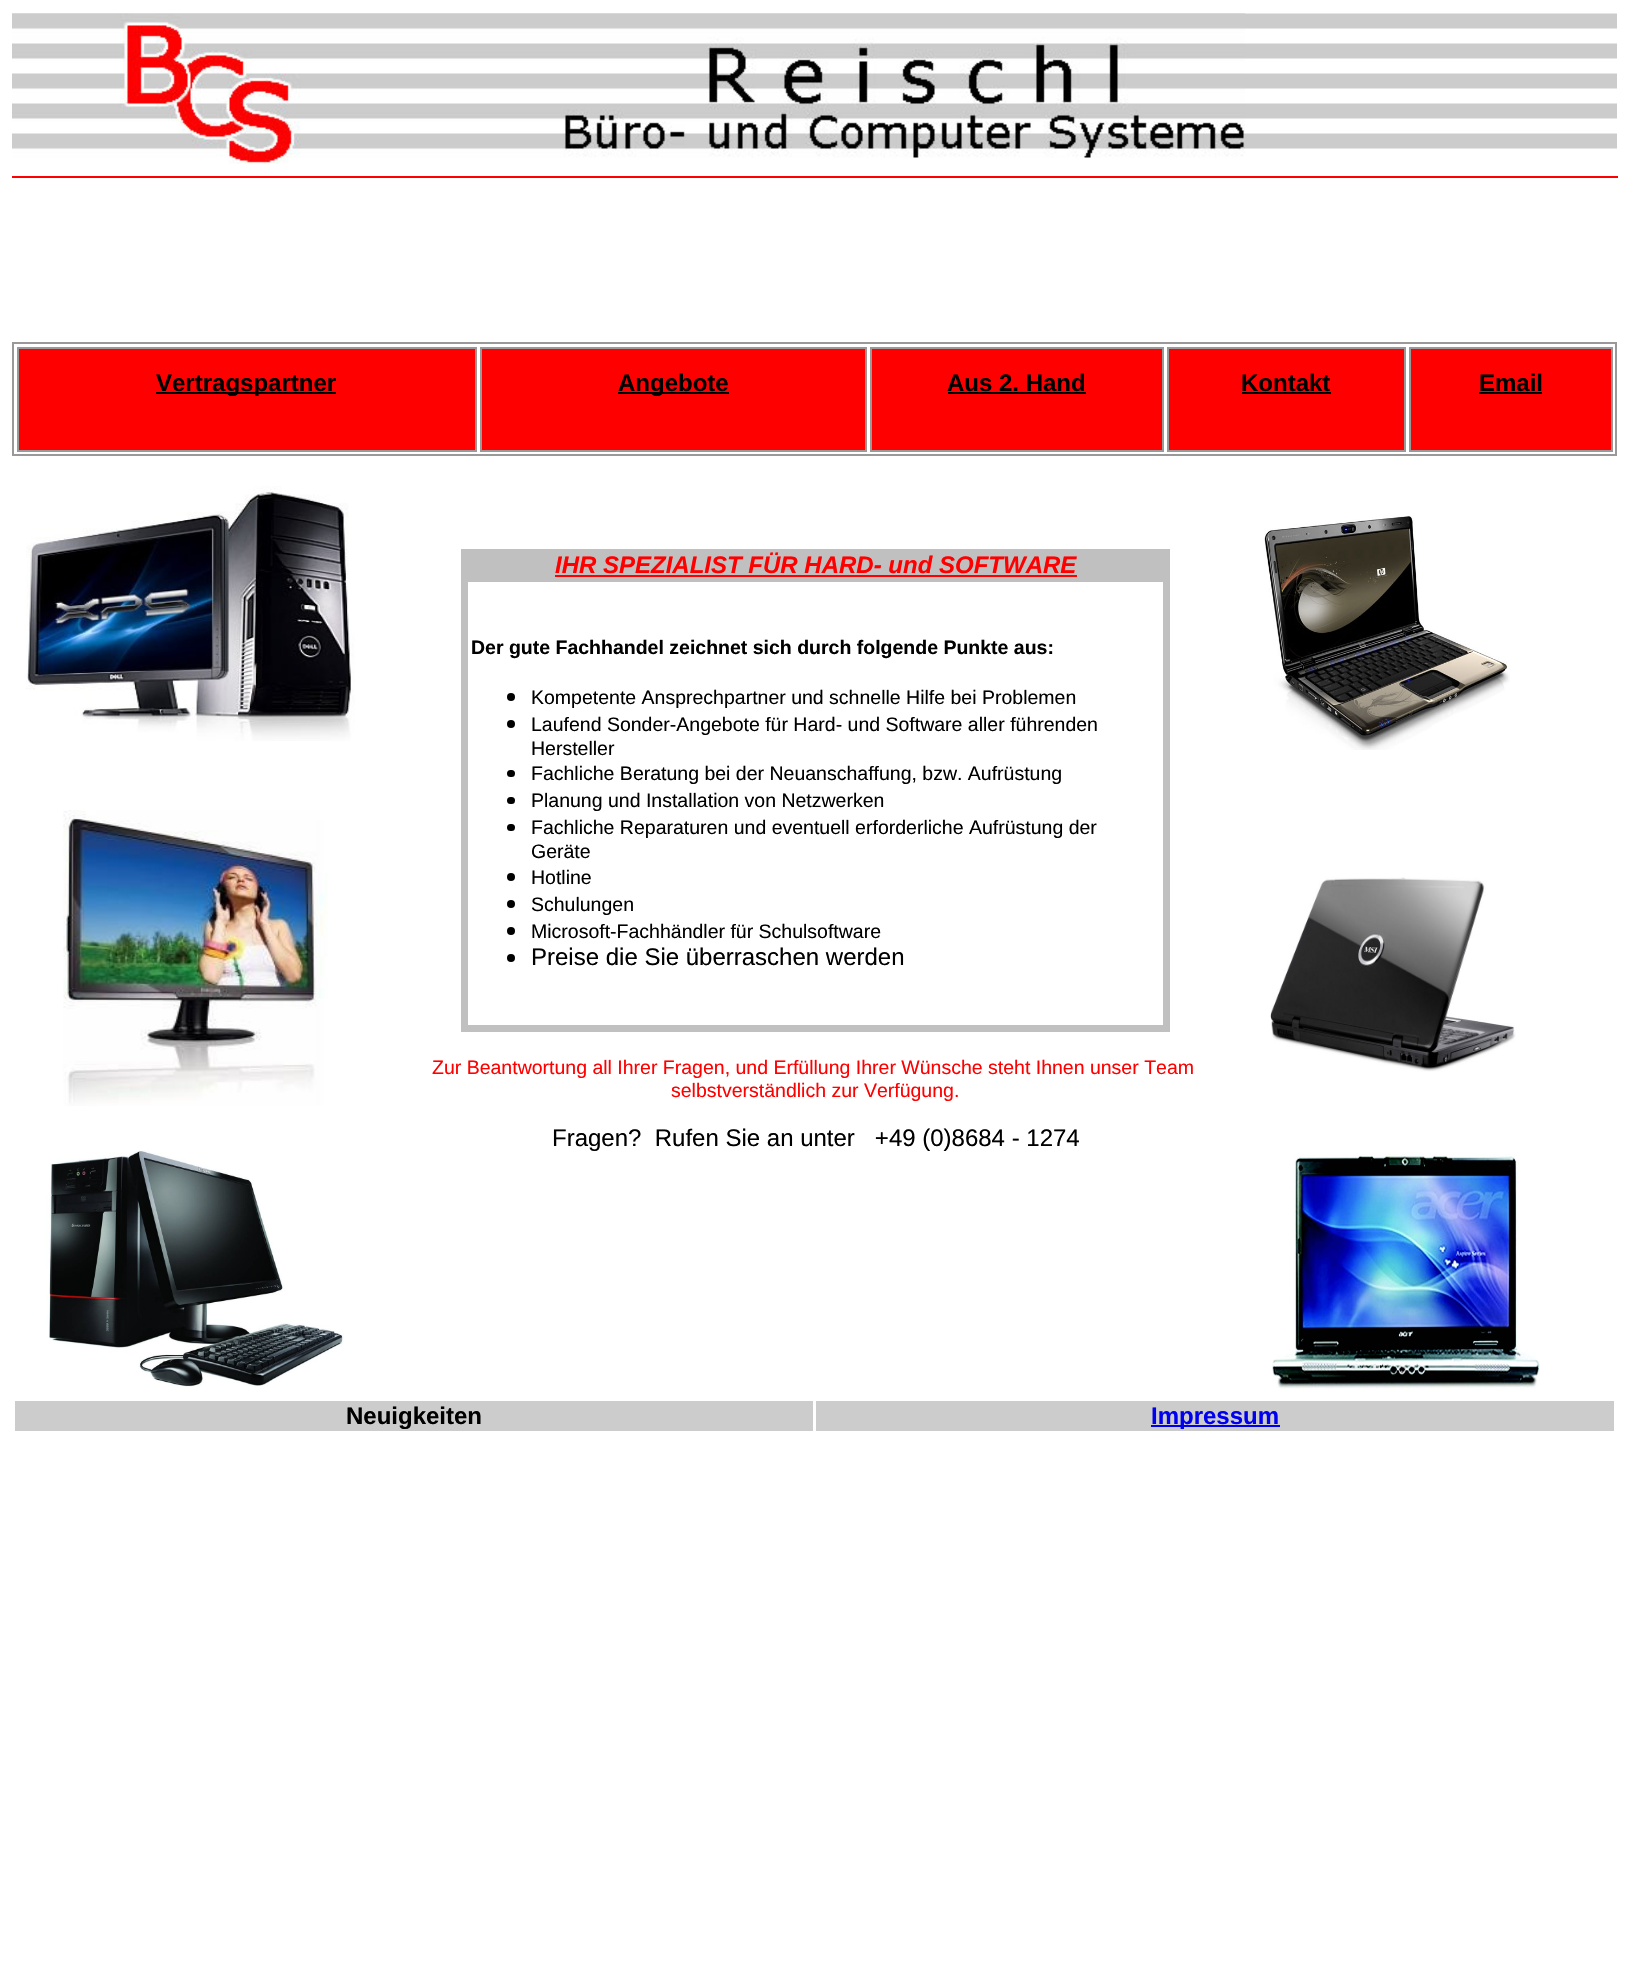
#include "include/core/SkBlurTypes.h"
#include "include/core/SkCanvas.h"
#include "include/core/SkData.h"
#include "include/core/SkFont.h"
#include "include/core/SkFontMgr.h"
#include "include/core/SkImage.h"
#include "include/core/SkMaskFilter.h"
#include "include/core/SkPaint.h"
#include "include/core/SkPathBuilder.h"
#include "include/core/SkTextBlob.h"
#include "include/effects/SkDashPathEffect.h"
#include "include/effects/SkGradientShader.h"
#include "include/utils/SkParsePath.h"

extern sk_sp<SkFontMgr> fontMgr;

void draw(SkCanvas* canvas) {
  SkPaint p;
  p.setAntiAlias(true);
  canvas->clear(SK_ColorWHITE);
  canvas->drawImageRect(SkImages::DeferredFromEncodedData(SkData::MakeFromFileName("images/1.png")), SkRect::MakeLTRB(12, 13, 1617, 149), SkSamplingOptions());
  canvas->drawImageRect(SkImages::DeferredFromEncodedData(SkData::MakeFromFileName("images/2.png")), SkRect::MakeLTRB(12, 13, 1245, 164), SkSamplingOptions());
  p.setColor(SkColorSetRGB(255, 0, 0));
  canvas->drawRect(SkRect::MakeLTRB(12, 176, 1618, 178), p);
  p.setStyle(SkPaint::kStroke_Style);
  p.setStrokeWidth(2);
  p.setColor(SkColorSetRGB(153, 153, 153));
  canvas->drawRect(SkRect::MakeLTRB(13, 343, 1616, 455), p);
  p.setStyle(SkPaint::kFill_Style);
  p.setColor(SkColorSetRGB(255, 0, 0));
  canvas->drawRect(SkRect::MakeLTRB(18, 348, 476, 451), p);
  p.setStyle(SkPaint::kStroke_Style);
  p.setColor(SkColorSetRGB(153, 153, 153));
  canvas->drawRect(SkRect::MakeLTRB(18, 348, 476, 451), p);
  p.setStyle(SkPaint::kFill_Style);
  p.setColor(SK_ColorBLACK);
  canvas->drawRect(SkRect::MakeLTRB(156, 392, 336, 394), p);
  p.setColor(SkColorSetRGB(255, 0, 0));
  canvas->drawRect(SkRect::MakeLTRB(481, 348, 866, 451), p);
  p.setStyle(SkPaint::kStroke_Style);
  p.setColor(SkColorSetRGB(153, 153, 153));
  canvas->drawRect(SkRect::MakeLTRB(481, 348, 866, 451), p);
  p.setStyle(SkPaint::kFill_Style);
  p.setColor(SK_ColorBLACK);
  canvas->drawRect(SkRect::MakeLTRB(618, 392, 729, 394), p);
  p.setColor(SkColorSetRGB(255, 0, 0));
  canvas->drawRect(SkRect::MakeLTRB(871, 348, 1163, 451), p);
  p.setStyle(SkPaint::kStroke_Style);
  p.setColor(SkColorSetRGB(153, 153, 153));
  canvas->drawRect(SkRect::MakeLTRB(871, 348, 1163, 451), p);
  p.setStyle(SkPaint::kFill_Style);
  p.setColor(SK_ColorBLACK);
  canvas->drawRect(SkRect::MakeLTRB(948, 392, 1086, 394), p);
  p.setColor(SkColorSetRGB(255, 0, 0));
  canvas->drawRect(SkRect::MakeLTRB(1168, 348, 1405, 451), p);
  p.setStyle(SkPaint::kStroke_Style);
  p.setColor(SkColorSetRGB(153, 153, 153));
  canvas->drawRect(SkRect::MakeLTRB(1168, 348, 1405, 451), p);
  p.setStyle(SkPaint::kFill_Style);
  p.setColor(SK_ColorBLACK);
  canvas->drawRect(SkRect::MakeLTRB(1242, 392, 1331, 394), p);
  p.setColor(SkColorSetRGB(255, 0, 0));
  canvas->drawRect(SkRect::MakeLTRB(1410, 348, 1612, 451), p);
  p.setStyle(SkPaint::kStroke_Style);
  p.setColor(SkColorSetRGB(153, 153, 153));
  canvas->drawRect(SkRect::MakeLTRB(1410, 348, 1612, 451), p);
  p.setStyle(SkPaint::kFill_Style);
  p.setColor(SK_ColorBLACK);
  canvas->drawRect(SkRect::MakeLTRB(1479, 392, 1542, 394), p);
  canvas->drawImageRect(SkImages::DeferredFromEncodedData(SkData::MakeFromFileName("images/3.png")), SkRect::MakeLTRB(26, 486, 355, 741), SkSamplingOptions());
  p.setColor(SkColorSetRGB(192, 192, 192));
  canvas->drawRect(SkRect::MakeLTRB(461, 549, 468, 1032), p);
  canvas->drawRect(SkRect::MakeLTRB(468, 549, 1163, 582), p);
  p.setColor(SkColorSetRGB(255, 0, 0));
  canvas->drawRect(SkRect::MakeLTRB(555, 575, 1077, 577), p);
  p.setColor(SkColorSetRGB(192, 192, 192));
  canvas->drawRect(SkRect::MakeLTRB(1163, 549, 1170, 1032), p);
  p.setColor(SK_ColorBLACK);
  canvas->drawCircle(511, 697, 4, p);
  canvas->drawCircle(511, 724, 4, p);
  canvas->drawRoundRect(SkRect::MakeLTRB(507, 770, 515, 777), 3.5f, 3.5f, p);
  canvas->drawRoundRect(SkRect::MakeLTRB(507, 797, 515, 804), 3.5f, 3.5f, p);
  canvas->drawRoundRect(SkRect::MakeLTRB(507, 824, 515, 831), 3.5f, 3.5f, p);
  canvas->drawCircle(511, 877, 4, p);
  canvas->drawCircle(511, 904, 4, p);
  canvas->drawCircle(511, 931, 4, p);
  canvas->drawCircle(511, 958, 4, p);
  p.setColor(SkColorSetRGB(192, 192, 192));
  canvas->drawRect(SkRect::MakeLTRB(468, 1025, 1163, 1032), p);
  canvas->drawImageRect(SkImages::DeferredFromEncodedData(SkData::MakeFromFileName("images/4.png")), SkRect::MakeLTRB(1264, 515, 1510, 750), SkSamplingOptions());
  canvas->drawImageRect(SkImages::DeferredFromEncodedData(SkData::MakeFromFileName("images/5.png")), SkRect::MakeLTRB(63, 810, 328, 1106), SkSamplingOptions());
  canvas->drawImageRect(SkImages::DeferredFromEncodedData(SkData::MakeFromFileName("images/6.png")), SkRect::MakeLTRB(1270, 877, 1516, 1072), SkSamplingOptions());
  canvas->drawImageRect(SkImages::DeferredFromEncodedData(SkData::MakeFromFileName("images/7.png")), SkRect::MakeLTRB(46, 1150, 344, 1387), SkSamplingOptions());
  canvas->drawImageRect(SkImages::DeferredFromEncodedData(SkData::MakeFromFileName("images/8.png")), SkRect::MakeLTRB(1272, 1154, 1540, 1389), SkSamplingOptions());
  p.setColor(SkColorSetRGB(204, 204, 204));
  canvas->drawRect(SkRect::MakeLTRB(15, 1401, 813, 1431), p);
  canvas->drawRect(SkRect::MakeLTRB(816, 1401, 1614, 1431), p);
  p.setColor(SkColorSetRGB(0, 0, 238));
  canvas->drawRect(SkRect::MakeLTRB(1151, 1425, 1280, 1427), p);
  SkFont font1(fontMgr->matchFamilyStyle("Liberation Sans", SkFontStyle::Bold()), 24);
  font1.setSubpixel(true);
  p.setColor(SK_ColorBLACK);
  canvas->drawString("Vertragspartner", 156, 391, font1, p);
  canvas->drawString("Angebote", 618, 391, font1, p);
  canvas->drawString("Aus 2. Hand", 947, 391, font1, p);
  canvas->drawString("Kontakt", 1241, 391, font1, p);
  canvas->drawString("Email", 1479, 391, font1, p);
  SkFont font2(fontMgr->matchFamilyStyle("Liberation Sans", SkFontStyle::BoldItalic()), 24);
  font2.setSubpixel(true);
  p.setColor(SkColorSetRGB(255, 0, 0));
  canvas->drawString("IHR SPEZIALIST FÜR HARD- und SOFTWARE", 555, 573, font2, p);
  SkFont font3(fontMgr->matchFamilyStyle("Liberation Sans", SkFontStyle::Bold()), 19.5f);
  font3.setSubpixel(true);
  p.setColor(SK_ColorBLACK);
  canvas->drawString("Der gute Fachhandel zeichnet sich durch folgende Punkte aus:", 471, 654, font3, p);
  SkFont font4(fontMgr->matchFamilyStyle("Liberation Sans", SkFontStyle::Normal()), 19.5f);
  font4.setSubpixel(true);
  canvas->drawString("Kompetente Ansprechpartner und schnelle Hilfe bei Problemen", 531, 704, font4, p);
  canvas->drawString("Laufend Sonder-Angebote für Hard- und Software aller führenden", 531, 731, font4, p);
  canvas->drawString("Hersteller", 531, 755, font4, p);
  canvas->drawString("Fachliche Beratung bei der Neuanschaffung, bzw. Aufrüstung", 531, 780, font4, p);
  canvas->drawString("Planung und Installation von Netzwerken", 531, 807, font4, p);
  canvas->drawString("Fachliche Reparaturen und eventuell erforderliche Aufrüstung der", 531, 834, font4, p);
  canvas->drawString("Geräte", 531, 858, font4, p);
  canvas->drawString("Hotline", 531, 884, font4, p);
  canvas->drawString("Schulungen", 531, 911, font4, p);
  canvas->drawString("Microsoft-Fachhändler für Schulsoftware", 531, 938, font4, p);
  SkFont font5(fontMgr->matchFamilyStyle("Liberation Sans", SkFontStyle::Normal()), 24);
  font5.setSubpixel(true);
  canvas->drawString("Preise die Sie überraschen werden", 531, 965, font5, p);
  p.setColor(SkColorSetRGB(255, 0, 0));
  canvas->drawString("Zur Beantwortung all Ihrer Fragen, und Erfüllung Ihrer Wünsche steht Ihnen unser Team", 432, 1074, font4, p);
  canvas->drawString("selbstverständlich zur Verfügung.", 671, 1097, font4, p);
  p.setColor(SK_ColorBLACK);
  canvas->drawString("Fragen?  Rufen Sie an unter   +49 (0)8684 - 1274", 552, 1146, font5, p);
  canvas->drawString("Neuigkeiten", 346, 1424, font1, p);
  p.setColor(SkColorSetRGB(0, 0, 238));
  canvas->drawString("Impressum", 1151, 1424, font1, p);
}
